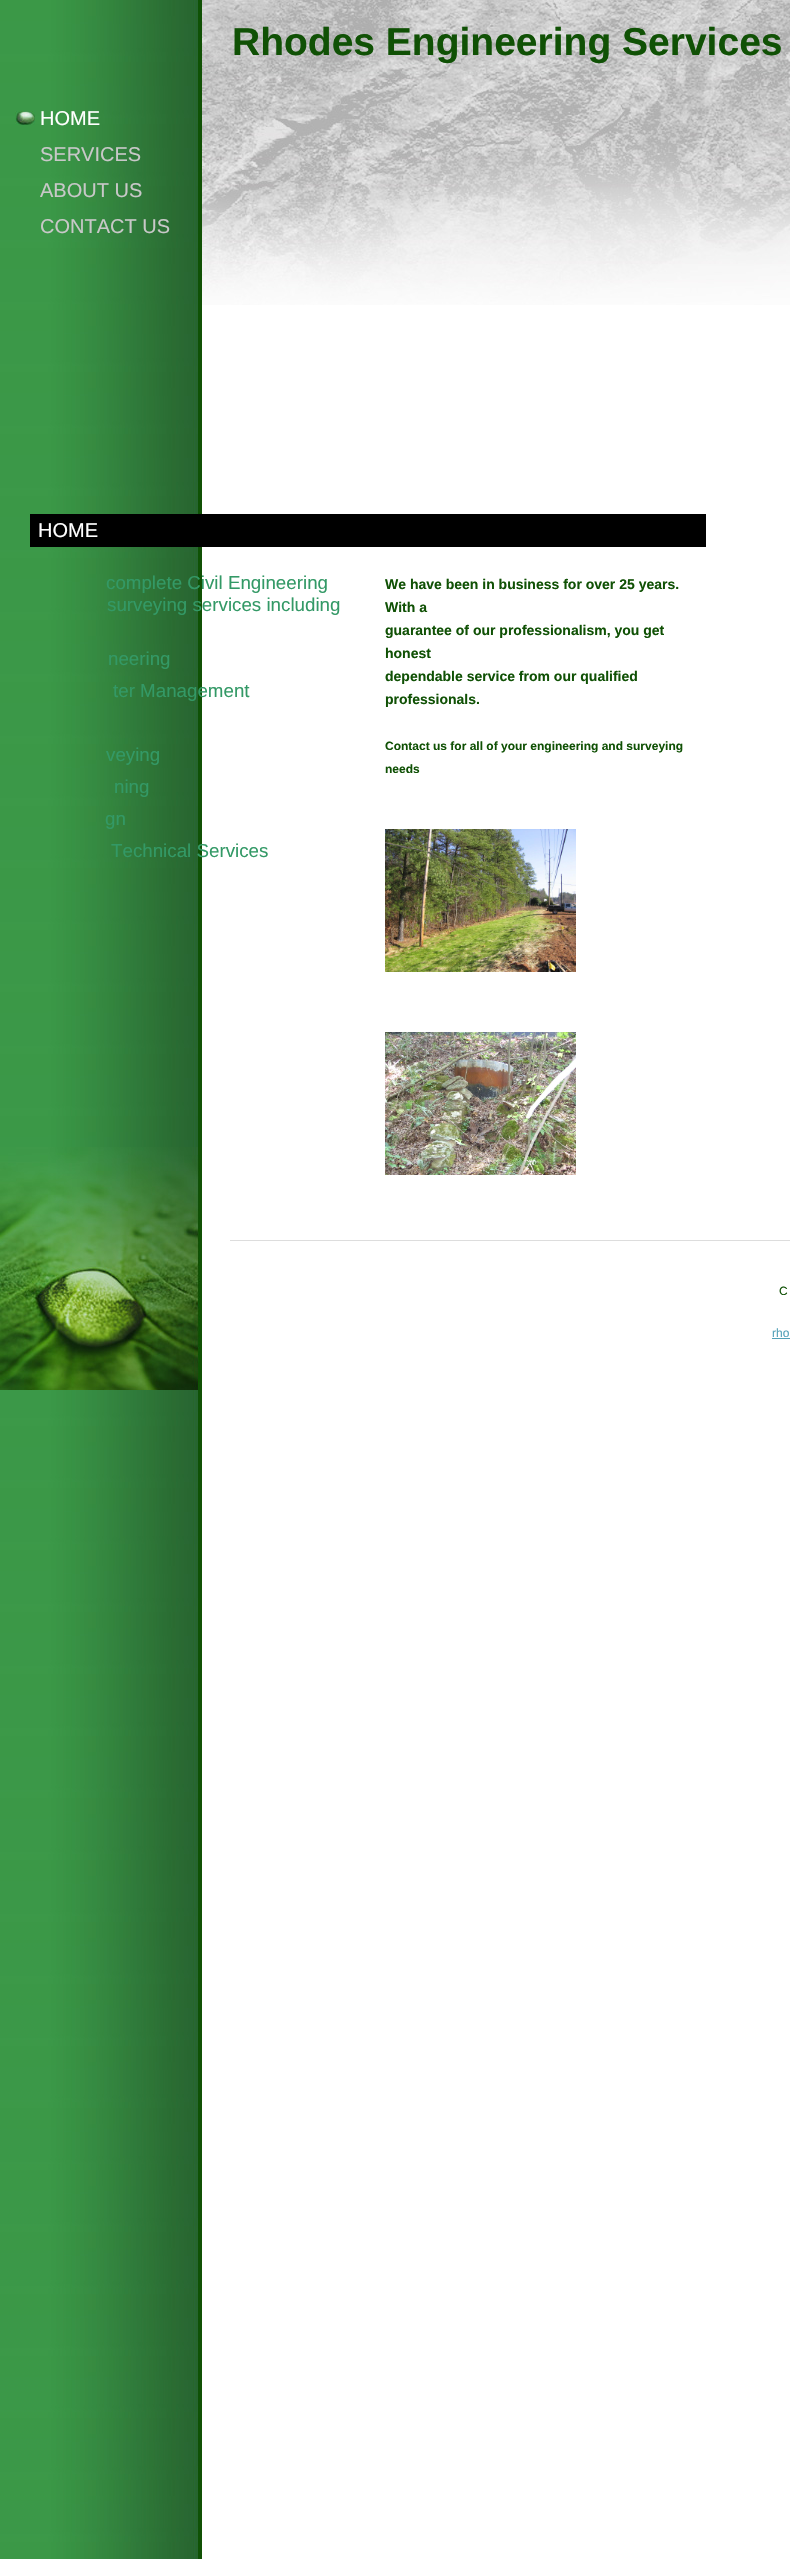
#include "include/core/SkBlurTypes.h"
#include "include/core/SkCanvas.h"
#include "include/core/SkData.h"
#include "include/core/SkFont.h"
#include "include/core/SkFontMgr.h"
#include "include/core/SkImage.h"
#include "include/core/SkMaskFilter.h"
#include "include/core/SkPaint.h"
#include "include/core/SkPathBuilder.h"
#include "include/core/SkTextBlob.h"
#include "include/effects/SkDashPathEffect.h"
#include "include/effects/SkGradientShader.h"
#include "include/utils/SkParsePath.h"

extern sk_sp<SkFontMgr> fontMgr;

void draw(SkCanvas* canvas) {
  SkPaint p;
  p.setAntiAlias(true);
  canvas->clear(SK_ColorWHITE);
  canvas->drawImageRect(SkImages::DeferredFromEncodedData(SkData::MakeFromFileName("images/1.png")), SkRect::MakeLTRB(0, 0, 202, 2559), SkSamplingOptions());
  canvas->drawImageRect(SkImages::DeferredFromEncodedData(SkData::MakeFromFileName("images/2.png")), SkRect::MakeLTRB(202, 0, 790, 305), SkSamplingOptions());
  canvas->drawImageRect(SkImages::DeferredFromEncodedData(SkData::MakeFromFileName("images/3.png")), SkRect::MakeLTRB(0, 1147, 200, 1390), SkSamplingOptions());
  canvas->drawImageRect(SkImages::DeferredFromEncodedData(SkData::MakeFromFileName("images/4.png")), SkRect::MakeLTRB(15, 111, 35, 125), SkSamplingOptions());
  p.setColor(SK_ColorBLACK);
  canvas->drawRect(SkRect::MakeLTRB(30, 514, 706, 547), p);
  canvas->drawImageRect(SkImages::DeferredFromEncodedData(SkData::MakeFromFileName("images/5.png")), SkRect::MakeLTRB(385, 829, 576, 972), SkSamplingOptions());
  canvas->drawImageRect(SkImages::DeferredFromEncodedData(SkData::MakeFromFileName("images/6.png")), SkRect::MakeLTRB(385, 1032, 576, 1175), SkSamplingOptions());
  p.setColor(SkColorSetRGB(221, 221, 221));
  canvas->drawRect(SkRect::MakeLTRB(230, 1240, 790, 1241), p);
  p.setColor(SkColorSetRGB(83, 161, 184));
  canvas->drawRect(SkRect::MakeLTRB(772, 1338, 790, 1339), p);
  SkFont font1(fontMgr->matchFamilyStyle("Liberation Sans", SkFontStyle::Bold()), 39);
  font1.setSubpixel(true);
  p.setColor(SkColorSetRGB(16, 81, 5));
  canvas->drawString("Rhodes Engineering Services", 232, 55, font1, p);
  SkFont font2(fontMgr->matchFamilyStyle("Liberation Sans", SkFontStyle::Normal()), 20);
  font2.setSubpixel(true);
  p.setColor(SK_ColorWHITE);
  canvas->drawString("HOME", 40, 125, font2, p);
  p.setColor(SkColorSetRGB(200, 200, 200));
  canvas->drawString("SERVICES", 40, 161, font2, p);
  canvas->drawString("ABOUT US", 40, 197, font2, p);
  canvas->drawString("CONTACT US", 40, 233, font2, p);
  p.setColor(SK_ColorWHITE);
  canvas->drawString("HOME", 38, 537, font2, p);
  SkFont font3(fontMgr->matchFamilyStyle("Liberation Sans", SkFontStyle::Normal()), 18.75f);
  font3.setSubpixel(true);
  p.setColor(SkColorSetRGB(51, 153, 102));
  canvas->drawString("complete Civil Engineering", 106, 589, font3, p);
  canvas->drawString("surveying services including", 107, 611, font3, p);
  canvas->drawString("neering", 108, 665, font3, p);
  canvas->drawString("ter Management", 113, 697, font3, p);
  canvas->drawString("veying", 106, 761, font3, p);
  canvas->drawString("ning", 114, 793, font3, p);
  canvas->drawString("gn", 105, 825, font3, p);
  canvas->drawString("Technical Services", 111, 857, font3, p);
  SkFont font4(fontMgr->matchFamilyStyle("Liberation Sans", SkFontStyle::Bold()), 14);
  font4.setSubpixel(true);
  p.setColor(SkColorSetRGB(16, 81, 5));
  canvas->drawString("We have been in business for over 25 years.", 385, 589, font4, p);
  canvas->drawString("With a", 385, 612, font4, p);
  canvas->drawString("guarantee of our professionalism, you get", 385, 635, font4, p);
  canvas->drawString("honest", 385, 658, font4, p);
  canvas->drawString("dependable service from our qualified", 385, 681, font4, p);
  canvas->drawString("professionals.", 385, 704, font4, p);
  SkFont font5(fontMgr->matchFamilyStyle("Liberation Sans", SkFontStyle::Bold()), 12);
  font5.setSubpixel(true);
  canvas->drawString("Contact us for all of your engineering and surveying", 385, 750, font5, p);
  canvas->drawString("needs", 385, 773, font5, p);
  SkFont font6(fontMgr->matchFamilyStyle("Liberation Sans", SkFontStyle::Normal()), 12);
  font6.setSubpixel(true);
  canvas->drawString("C", 779, 1295, font6, p);
  p.setColor(SkColorSetRGB(83, 161, 184));
  canvas->drawString("rho", 772, 1337, font6, p);
}
